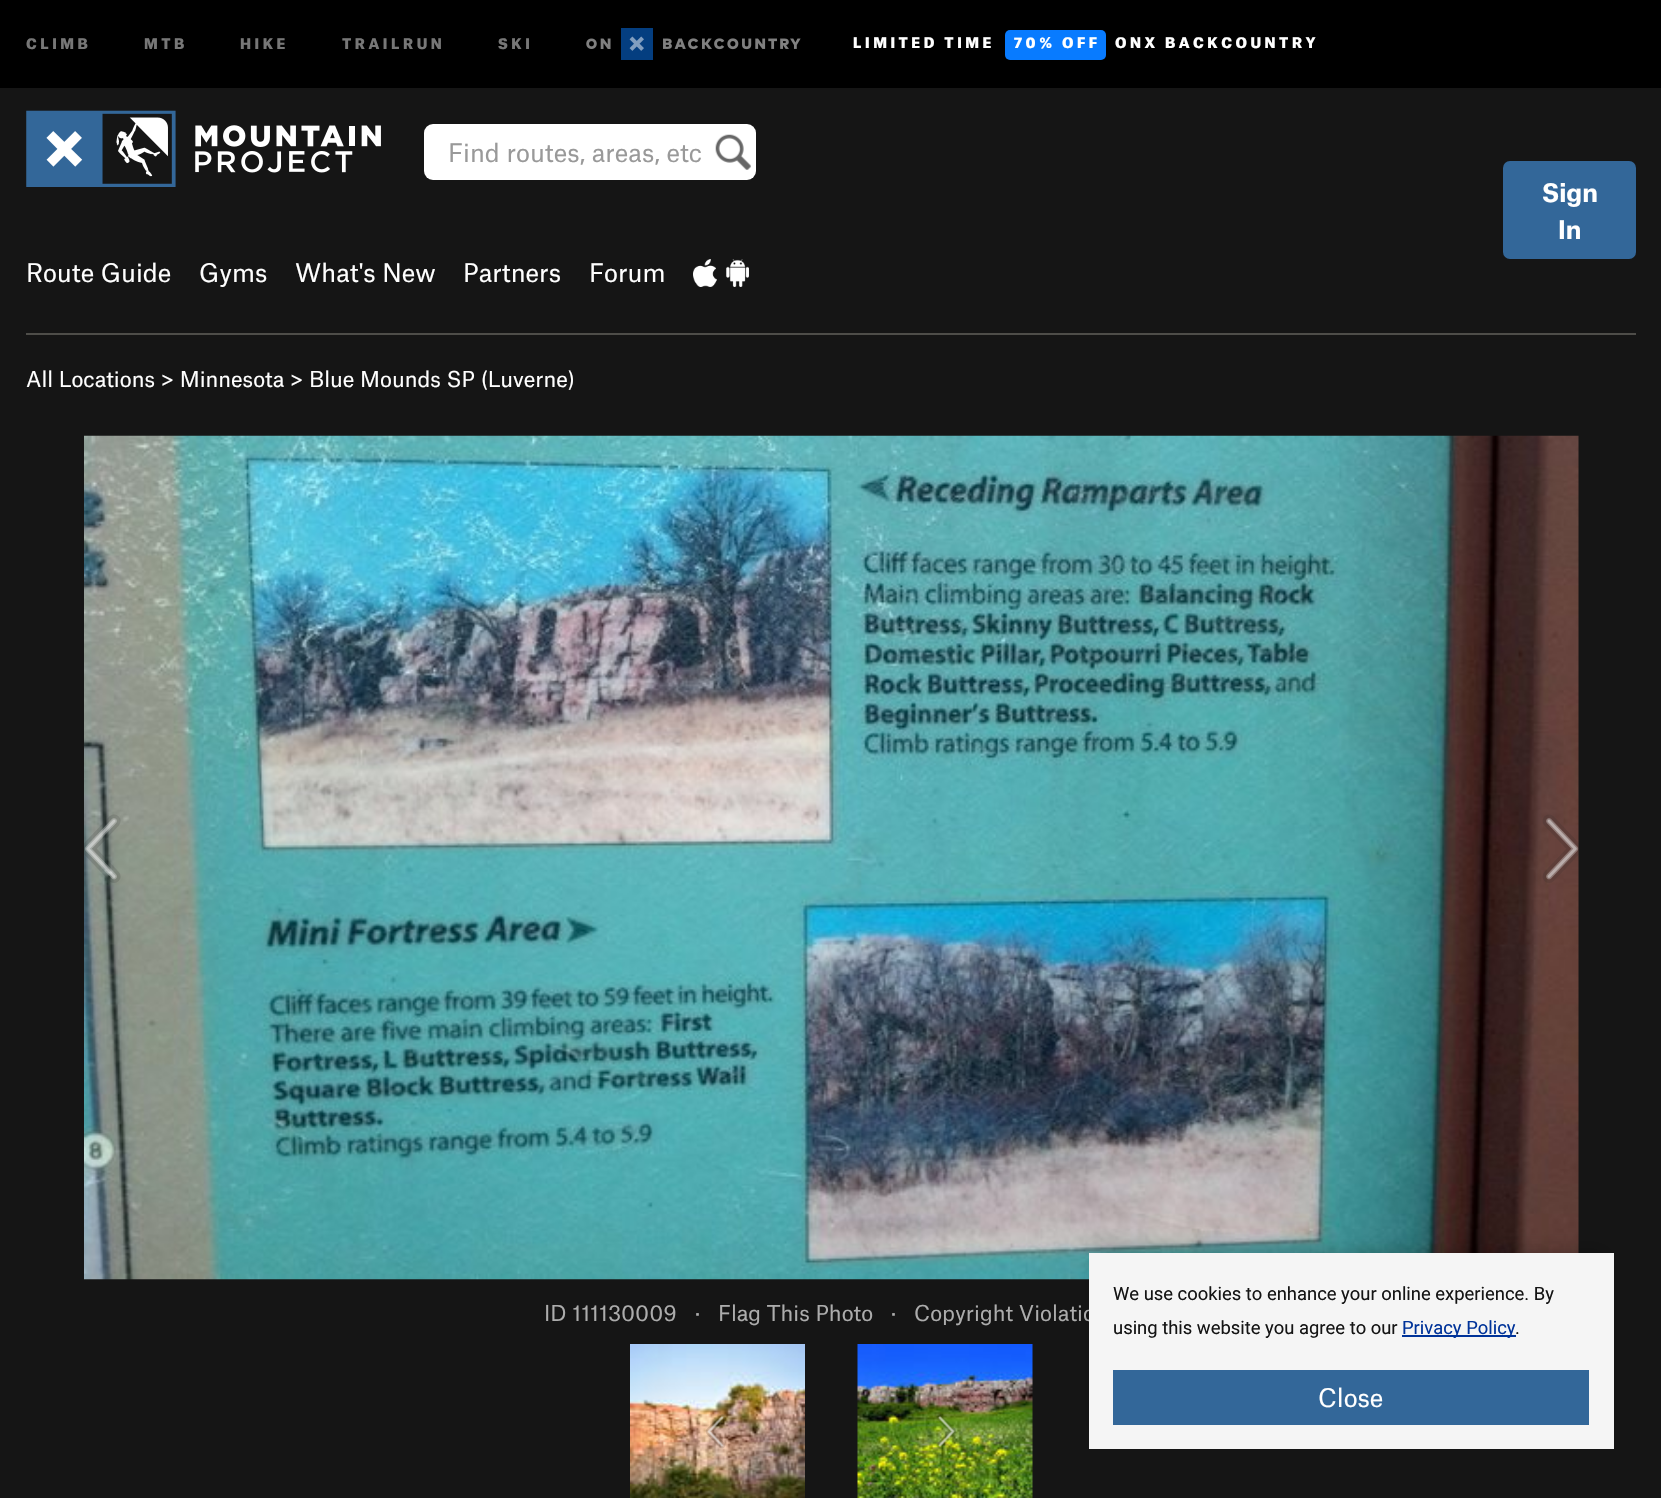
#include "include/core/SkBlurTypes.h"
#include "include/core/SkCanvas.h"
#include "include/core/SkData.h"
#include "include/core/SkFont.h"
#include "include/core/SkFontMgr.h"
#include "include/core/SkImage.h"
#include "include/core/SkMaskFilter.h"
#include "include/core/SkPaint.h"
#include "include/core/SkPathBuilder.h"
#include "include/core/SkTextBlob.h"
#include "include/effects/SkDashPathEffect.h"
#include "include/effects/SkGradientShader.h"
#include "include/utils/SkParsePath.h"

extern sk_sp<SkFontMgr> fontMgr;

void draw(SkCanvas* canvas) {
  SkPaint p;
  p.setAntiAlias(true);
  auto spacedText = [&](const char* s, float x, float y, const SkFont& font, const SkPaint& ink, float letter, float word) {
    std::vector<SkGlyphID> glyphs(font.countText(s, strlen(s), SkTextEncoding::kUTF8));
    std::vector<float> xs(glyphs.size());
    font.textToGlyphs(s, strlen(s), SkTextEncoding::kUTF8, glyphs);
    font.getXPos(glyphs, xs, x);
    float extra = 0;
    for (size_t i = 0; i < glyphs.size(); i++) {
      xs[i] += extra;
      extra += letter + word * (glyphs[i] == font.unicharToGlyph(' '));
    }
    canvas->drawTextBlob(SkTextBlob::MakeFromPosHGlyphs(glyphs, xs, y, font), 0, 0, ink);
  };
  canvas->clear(SkColorSetRGB(21, 21, 21));
  p.setColor(SK_ColorBLACK);
  canvas->drawRect(SkRect::MakeLTRB(0, 0, 1661, 88), p);
  canvas->drawImageRect(SkImages::DeferredFromEncodedData(SkData::MakeFromFileName("images/1.png")), SkRect::MakeLTRB(586, 28, 801, 60), SkSamplingOptions());
  p.setColor(SkColorSetRGB(8, 123, 255));
  canvas->drawRoundRect(SkRect::MakeLTRB(1005, 30, 1106, 60), 5, 5, p);
  canvas->drawImageRect(SkImages::DeferredFromEncodedData(SkData::MakeFromFileName("images/2.png")), SkRect::MakeLTRB(26, 110, 381, 187), SkSamplingOptions());
  p.setColor(SK_ColorWHITE);
  canvas->drawRoundRect(SkRect::MakeLTRB(424, 124, 756, 180), 9, 9, p);
  canvas->drawImageRect(SkImages::DeferredFromEncodedData(SkData::MakeFromFileName("images/3.png")), SkRect::MakeLTRB(715, 134, 751, 170), SkSamplingOptions());
  canvas->drawImageRect(SkImages::DeferredFromEncodedData(SkData::MakeFromFileName("images/4.png")), SkRect::MakeLTRB(693, 259, 717, 287), SkSamplingOptions());
  canvas->drawImageRect(SkImages::DeferredFromEncodedData(SkData::MakeFromFileName("images/5.png")), SkRect::MakeLTRB(726, 259, 749, 287), SkSamplingOptions());
  p.setColor(SkColorSetRGB(51, 103, 153));
  canvas->drawRoundRect(SkRect::MakeLTRB(1503, 161, 1636, 259), 7, 7, p);
  p.setColor(SkColorSetRGB(78, 77, 73));
  canvas->drawRect(SkRect::MakeLTRB(26, 333, 1636, 335), p);
  canvas->drawImageRect(SkImages::DeferredFromEncodedData(SkData::MakeFromFileName("images/6.png")), SkRect::MakeLTRB(84, 435, 1579, 1280), SkSamplingOptions());
  canvas->drawImageRect(SkImages::DeferredFromEncodedData(SkData::MakeFromFileName("images/7.png")), SkRect::MakeLTRB(84, 814, 121, 883), SkSamplingOptions());
  canvas->drawImageRect(SkImages::DeferredFromEncodedData(SkData::MakeFromFileName("images/8.png")), SkRect::MakeLTRB(1542, 814, 1579, 883), SkSamplingOptions());
  canvas->drawImageRect(SkImages::DeferredFromEncodedData(SkData::MakeFromFileName("images/9.png")), SkRect::MakeLTRB(630, 1344, 805, 1498), SkSamplingOptions());
  canvas->drawImageRect(SkImages::DeferredFromEncodedData(SkData::MakeFromFileName("images/10.png")), SkRect::MakeLTRB(705, 1414, 726, 1449), SkSamplingOptions());
  canvas->drawImageRect(SkImages::DeferredFromEncodedData(SkData::MakeFromFileName("images/11.png")), SkRect::MakeLTRB(857, 1344, 1033, 1498), SkSamplingOptions());
  canvas->drawImageRect(SkImages::DeferredFromEncodedData(SkData::MakeFromFileName("images/12.png")), SkRect::MakeLTRB(936, 1414, 956, 1449), SkSamplingOptions());
  p.setColor(SkColorSetARGB(64, 0, 0, 0));
  p.setMaskFilter(SkMaskFilter::MakeBlur(kNormal_SkBlurStyle, 9));
  canvas->drawRect(SkRect::MakeLTRB(1097, 1253, 1605, 1432), p);
  p.setMaskFilter(nullptr);
  SkFont font1(fontMgr->matchFamilyStyle("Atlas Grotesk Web", SkFontStyle(900, SkFontStyle::kNormal_Width, SkFontStyle::kUpright_Slant)), 14);
  font1.setSubpixel(true);
  p.setColor(SkColorSetRGB(119, 119, 119));
  spacedText("CLIMB", 26, 49, font1, p, 3.5f, 0);
  spacedText("MTB", 144, 49, font1, p, 3.5f, 0);
  spacedText("HIKE", 240, 49, font1, p, 3.5f, 0);
  spacedText("TRAILRUN", 342, 49, font1, p, 3.5f, 0);
  spacedText("SKI", 498, 49, font1, p, 3.5f, 0);
  p.setColor(SK_ColorWHITE);
  spacedText("LIMITED TIME", 853, 48, font1, p, 3.5f, 0);
  spacedText("70% OFF", 1014, 48, font1, p, 3.5f, 0);
  spacedText("ONX BACKCOUNTRY", 1115, 48, font1, p, 3.5f, 0);
  SkFont font2(fontMgr->matchFamilyStyle("Atlas Grotesk Web", SkFontStyle::Normal()), 24.5f);
  font2.setSubpixel(true);
  p.setColor(SkColorSetRGB(153, 153, 153));
  canvas->drawString("Find routes, areas, etc", 448, 162, font2, p);
  p.setColor(SK_ColorWHITE);
  canvas->drawString("Route Guide", 26, 282, font2, p);
  canvas->drawString("Gyms", 199, 282, font2, p);
  canvas->drawString("What's New", 295, 282, font2, p);
  canvas->drawString("Partners", 463, 282, font2, p);
  canvas->drawString("Forum", 589, 282, font2, p);
  SkFont font3(fontMgr->matchFamilyStyle("Atlas Grotesk Web", SkFontStyle::Bold()), 24.5f);
  font3.setSubpixel(true);
  canvas->drawString("Sign", 1542, 202, font3, p);
  canvas->drawString("In", 1558, 239, font3, p);
  SkFont font4(fontMgr->matchFamilyStyle("Atlas Grotesk Web", SkFontStyle::Normal()), 21);
  font4.setSubpixel(true);
  canvas->drawString("All Locations > Minnesota > Blue Mounds SP (Luverne)", 26, 387, font4, p);
  p.setColor(SkColorSetRGB(172, 172, 172));
  canvas->drawString("ID 111130009", 544, 1321, font4, p);
  canvas->drawString("·", 695, 1321, font4, p);
  canvas->drawString("Flag This Photo", 718, 1321, font4, p);
  canvas->drawString("·", 891, 1321, font4, p);
  canvas->drawString("Copyright Violatio", 914, 1321, font4, p);
  p.setColor(SkColorSetRGB(245, 245, 245));
  canvas->drawRect(SkRect::MakeLTRB(1089, 1253, 1614, 1449), p);
  SkFont font5(fontMgr->matchFamilyStyle("Roboto", SkFontStyle::Normal()), 18.4f);
  font5.setSubpixel(true);
  p.setColor(SkColorSetRGB(21, 21, 21));
  canvas->drawString("We use cookies to enhance your online experience. By", 1113, 1300, font5, p);
  canvas->drawString("using this website you agree to our", 1113, 1334, font5, p);
  p.setColor(SkColorSetRGB(0, 51, 153));
  canvas->drawRect(SkRect::MakeLTRB(1402, 1335, 1516, 1337), p);
  canvas->drawString("Privacy Policy", 1402, 1334, font5, p);
  p.setColor(SkColorSetRGB(21, 21, 21));
  canvas->drawString(".", 1515, 1334, font5, p);
  p.setColor(SkColorSetRGB(51, 103, 153));
  canvas->drawRect(SkRect::MakeLTRB(1113, 1370, 1589, 1425), p);
  p.setColor(SK_ColorWHITE);
  canvas->drawString("Close", 1318, 1407, font2, p);
}
